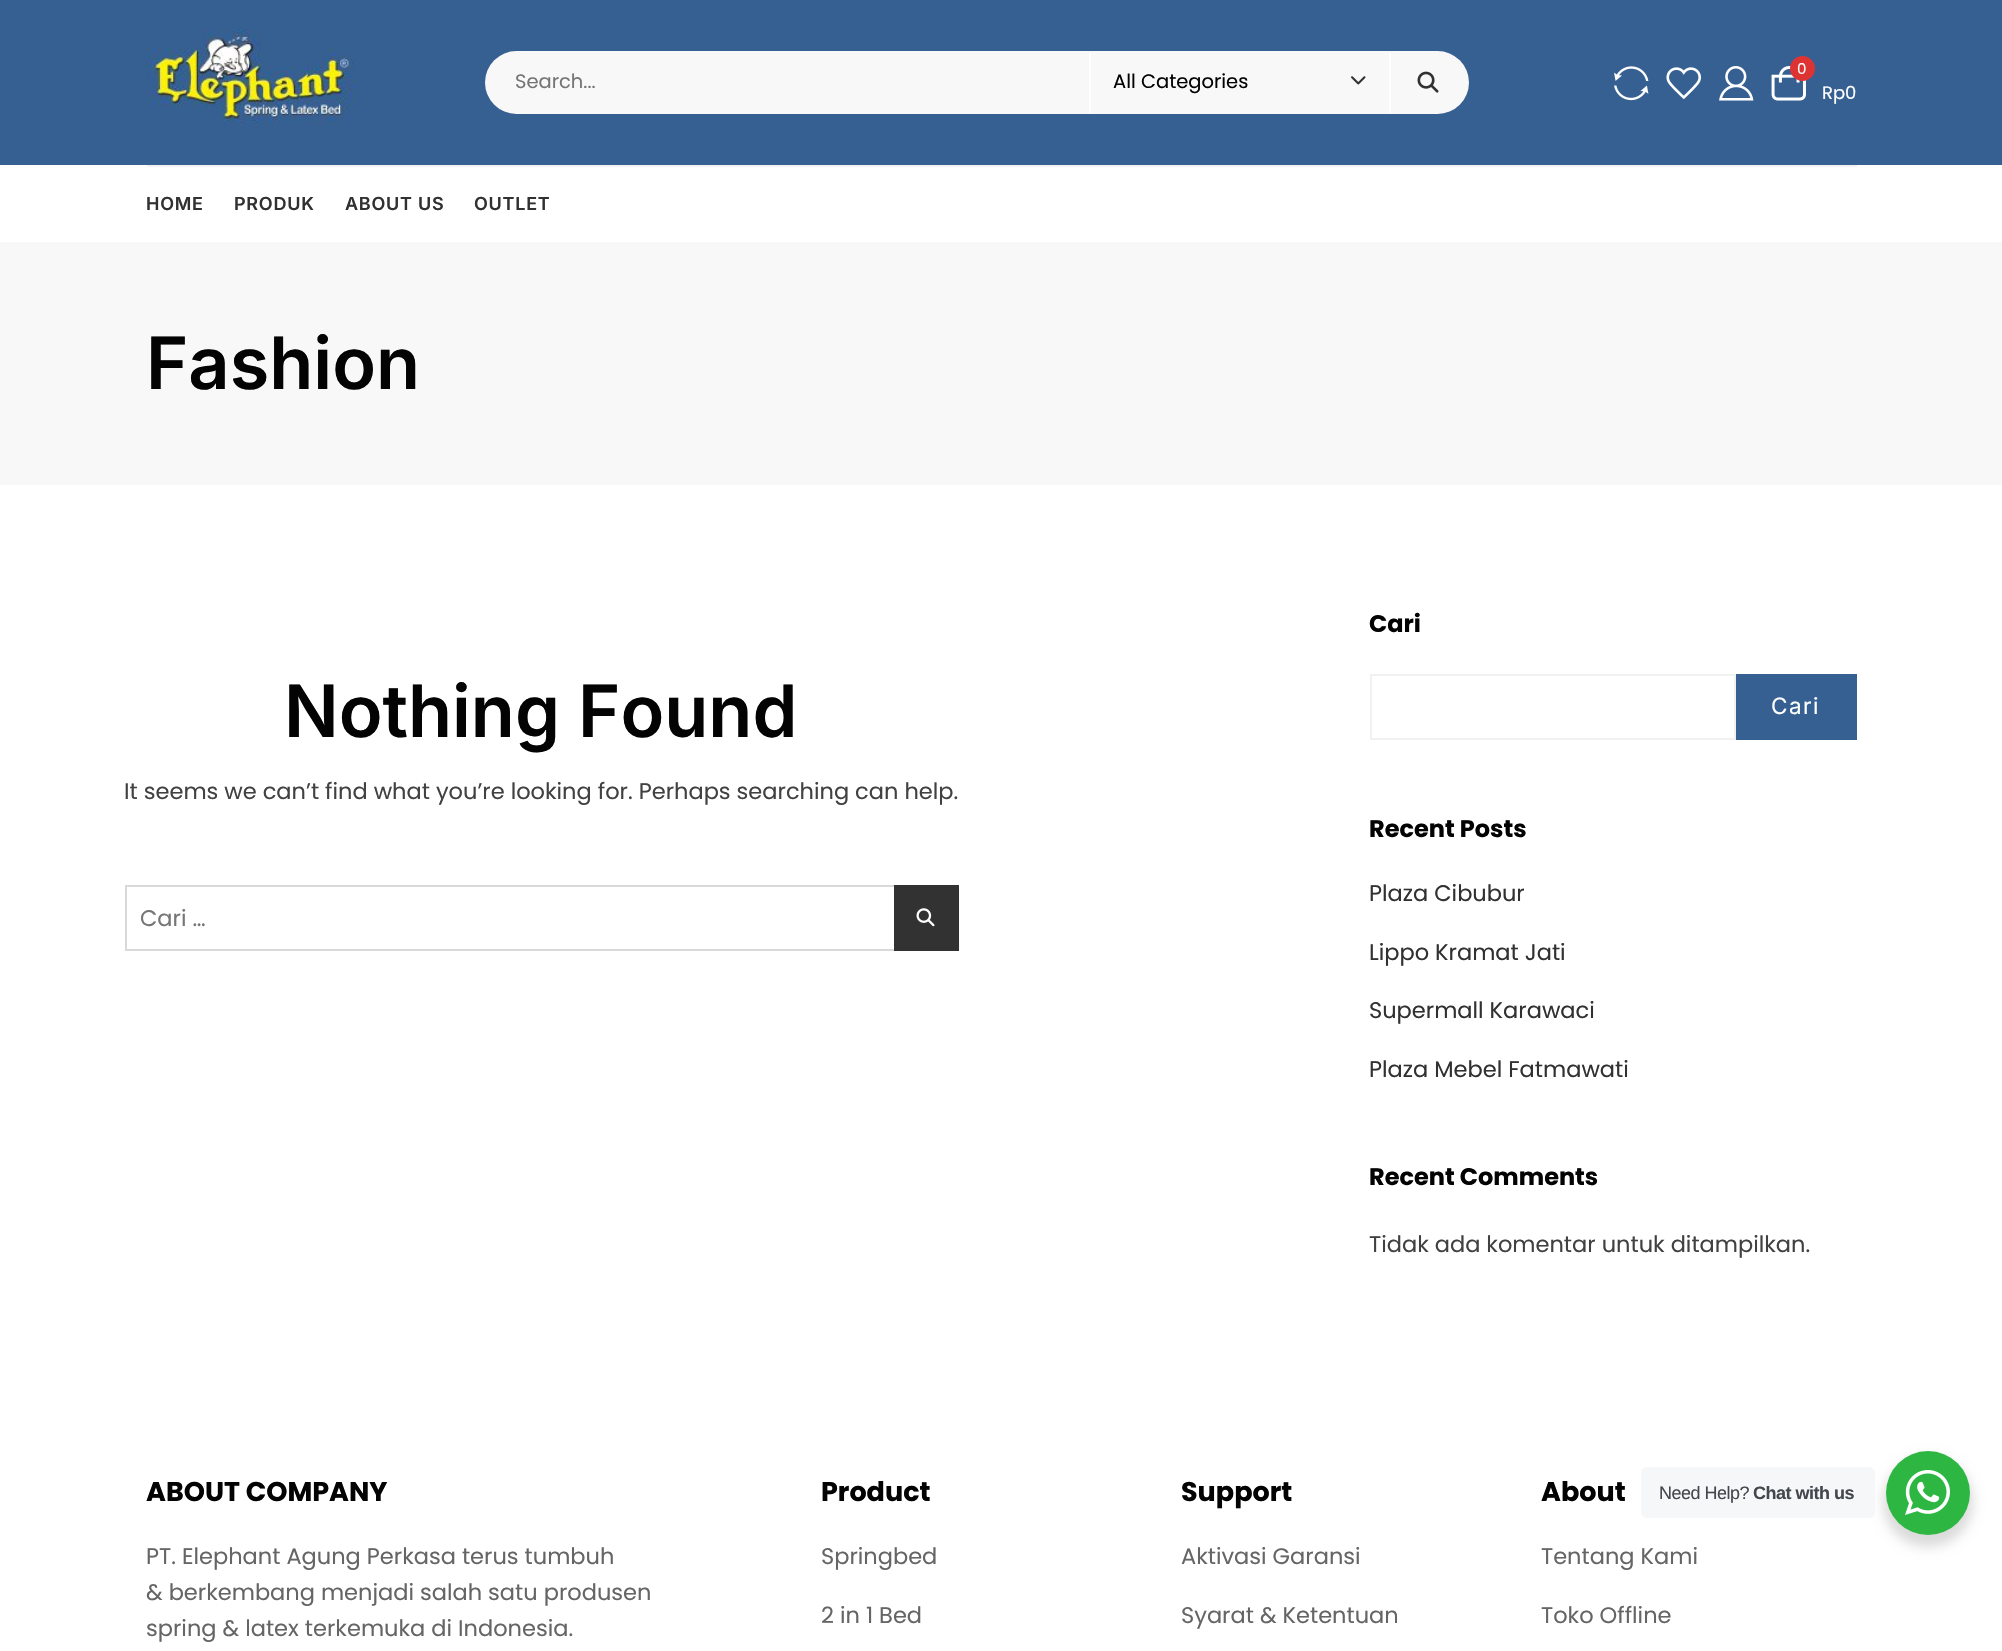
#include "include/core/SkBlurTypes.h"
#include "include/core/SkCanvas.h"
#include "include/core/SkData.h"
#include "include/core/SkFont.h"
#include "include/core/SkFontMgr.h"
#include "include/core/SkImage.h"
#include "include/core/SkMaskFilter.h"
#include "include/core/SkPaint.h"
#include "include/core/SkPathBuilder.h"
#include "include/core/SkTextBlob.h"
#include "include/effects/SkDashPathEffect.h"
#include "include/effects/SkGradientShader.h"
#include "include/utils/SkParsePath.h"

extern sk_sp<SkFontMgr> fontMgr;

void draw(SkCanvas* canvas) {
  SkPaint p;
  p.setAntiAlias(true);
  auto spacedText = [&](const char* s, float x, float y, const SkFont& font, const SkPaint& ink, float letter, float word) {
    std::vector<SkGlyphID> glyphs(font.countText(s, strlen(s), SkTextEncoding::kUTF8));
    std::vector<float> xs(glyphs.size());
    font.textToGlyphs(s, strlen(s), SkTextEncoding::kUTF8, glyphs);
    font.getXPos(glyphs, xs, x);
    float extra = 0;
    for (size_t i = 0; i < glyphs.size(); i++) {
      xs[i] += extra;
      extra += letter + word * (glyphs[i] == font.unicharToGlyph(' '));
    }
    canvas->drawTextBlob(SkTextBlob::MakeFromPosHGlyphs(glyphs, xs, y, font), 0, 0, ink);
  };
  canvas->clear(SK_ColorWHITE);
  p.setColor(SkColorSetRGB(54, 96, 146));
  canvas->drawRect(SkRect::MakeLTRB(0, 0, 2002, 165), p);
  canvas->drawImageRect(SkImages::DeferredFromEncodedData(SkData::MakeFromFileName("images/1.png")), SkRect::MakeLTRB(147, 30, 356, 125), SkSamplingOptions());
  p.setColor(SkColorSetRGB(248, 248, 248));
  canvas->drawRoundRect(SkRect::MakeLTRB(485, 51, 1469, 114), 31.5f, 31.5f, p);
  p.setColor(SK_ColorWHITE);
  canvas->drawRect(SkRect::MakeLTRB(1389, 53, 1391, 113), p);
  canvas->drawRect(SkRect::MakeLTRB(1089, 53, 1091, 113), p);
  canvas->drawImageRect(SkImages::DeferredFromEncodedData(SkData::MakeFromFileName("images/2.png")), SkRect::MakeLTRB(1351, 76, 1366, 85), SkSamplingOptions());
  canvas->drawImageRect(SkImages::DeferredFromEncodedData(SkData::MakeFromFileName("images/3.png")), SkRect::MakeLTRB(1417, 71, 1439, 93), SkSamplingOptions());
  canvas->drawImageRect(SkImages::DeferredFromEncodedData(SkData::MakeFromFileName("images/4.png")), SkRect::MakeLTRB(1614, 66, 1649, 101), SkSamplingOptions());
  canvas->drawImageRect(SkImages::DeferredFromEncodedData(SkData::MakeFromFileName("images/5.png")), SkRect::MakeLTRB(1666, 67, 1701, 100), SkSamplingOptions());
  canvas->drawImageRect(SkImages::DeferredFromEncodedData(SkData::MakeFromFileName("images/6.png")), SkRect::MakeLTRB(1719, 66, 1754, 101), SkSamplingOptions());
  canvas->drawImageRect(SkImages::DeferredFromEncodedData(SkData::MakeFromFileName("images/7.png")), SkRect::MakeLTRB(1771, 66, 1806, 101), SkSamplingOptions());
  p.setColor(SkColorSetRGB(221, 51, 51));
  canvas->drawCircle(1802.5f, 68.5f, 12.5f, p);
  p.setColor(SkColorSetRGB(241, 241, 241));
  canvas->drawRect(SkRect::MakeLTRB(147, 165, 1857, 167), p);
  p.setColor(SkColorSetRGB(248, 248, 248));
  canvas->drawRect(SkRect::MakeLTRB(0, 242, 2002, 485), p);
  p.setStyle(SkPaint::kStroke_Style);
  p.setStrokeWidth(2);
  p.setColor(SkColorSetRGB(217, 217, 217));
  canvas->drawRect(SkRect::MakeLTRB(126, 886, 958, 950), p);
  p.setStyle(SkPaint::kFill_Style);
  p.setColor(SkColorSetRGB(50, 50, 50));
  canvas->drawRect(SkRect::MakeLTRB(894, 885, 959, 951), p);
  canvas->drawImageRect(SkImages::DeferredFromEncodedData(SkData::MakeFromFileName("images/8.png")), SkRect::MakeLTRB(916, 908, 935, 927), SkSamplingOptions());
  p.setStyle(SkPaint::kStroke_Style);
  p.setColor(SkColorSetRGB(241, 241, 241));
  canvas->drawRect(SkRect::MakeLTRB(1371, 675, 1735, 739), p);
  p.setStyle(SkPaint::kFill_Style);
  p.setColor(SkColorSetRGB(54, 96, 146));
  canvas->drawRect(SkRect::MakeLTRB(1736, 674, 1857, 740), p);
  p.setColor(SkColorSetARGB(36, 0, 0, 0));
  p.setMaskFilter(SkMaskFilter::MakeBlur(kNormal_SkBlurStyle, 6));
  canvas->drawRoundRect(SkRect::MakeLTRB(1883, 1457, 1973, 1547), 45, 45, p);
  p.setMaskFilter(nullptr);
  p.setColor(SkColorSetRGB(245, 247, 249));
  canvas->drawRoundRect(SkRect::MakeLTRB(1641, 1467, 1875, 1518), 6, 6, p);
  p.setColor(SkColorSetRGB(45, 183, 66));
  canvas->drawCircle(1928, 1493, 42, p);
  canvas->drawImageRect(SkImages::DeferredFromEncodedData(SkData::MakeFromFileName("images/9.png")), SkRect::MakeLTRB(1905, 1470, 1950, 1515), SkSamplingOptions());
  SkFont font1(fontMgr->matchFamilyStyle("Poppins", SkFontStyle::Normal()), 19.5f);
  font1.setSubpixel(true);
  p.setColor(SkColorSetRGB(117, 117, 117));
  canvas->drawString("Search...", 515, 88, font1, p);
  p.setColor(SkColorSetRGB(3, 3, 3));
  canvas->drawString("All Categories", 1113, 88, font1, p);
  SkFont font2(fontMgr->matchFamilyStyle("Poppins", SkFontStyle::Normal()), 15);
  font2.setSubpixel(true);
  p.setColor(SK_ColorWHITE);
  canvas->drawString("0", 1797, 74, font2, p);
  SkFont font3(fontMgr->matchFamilyStyle("Poppins", SkFontStyle::Normal()), 18);
  font3.setSubpixel(true);
  canvas->drawString("Rp0", 1822, 99, font3, p);
  SkFont font4(fontMgr->matchFamilyStyle("Inter", SkFontStyle(600, SkFontStyle::kNormal_Width, SkFontStyle::kUpright_Slant)), 18);
  font4.setSubpixel(true);
  p.setColor(SkColorSetRGB(49, 49, 49));
  spacedText("HOME", 146, 210, font4, p, 0.75f, 0);
  spacedText("PRODUK", 234, 210, font4, p, 0.75f, 0);
  spacedText("ABOUT US", 345, 210, font4, p, 0.75f, 0);
  spacedText("OUTLET", 474, 210, font4, p, 0.75f, 0);
  SkFont font5(fontMgr->matchFamilyStyle("Inter", SkFontStyle(600, SkFontStyle::kNormal_Width, SkFontStyle::kUpright_Slant)), 72);
  font5.setSubpixel(true);
  p.setColor(SkColorSetRGB(3, 3, 3));
  canvas->drawString("Fashion", 146, 389, font5, p);
  canvas->drawString("Nothing Found", 284, 737, font5, p);
  SkFont font6(fontMgr->matchFamilyStyle("Poppins", SkFontStyle::Normal()), 22.5f);
  font6.setSubpixel(true);
  p.setColor(SkColorSetRGB(65, 65, 65));
  canvas->drawString("It seems we can’t find what you’re looking for. Perhaps searching can help.", 124, 799, font6, p);
  p.setColor(SkColorSetRGB(117, 117, 117));
  canvas->drawString("Cari …", 140, 926, font6, p);
  SkFont font7(fontMgr->matchFamilyStyle("Poppins", SkFontStyle::Bold()), 24);
  font7.setSubpixel(true);
  p.setColor(SkColorSetRGB(3, 3, 3));
  canvas->drawString("Cari", 1369, 632, font7, p);
  SkFont font8(fontMgr->matchFamilyStyle("Inter", SkFontStyle::Normal()), 22.5f);
  font8.setSubpixel(true);
  p.setColor(SK_ColorWHITE);
  spacedText("Cari", 1771, 714, font8, p, 1.5f, 0);
  p.setColor(SkColorSetRGB(3, 3, 3));
  canvas->drawString("Recent Posts", 1369, 837, font7, p);
  p.setColor(SkColorSetRGB(49, 49, 49));
  canvas->drawString("Plaza Cibubur", 1369, 901, font6, p);
  canvas->drawString("Lippo Kramat Jati", 1369, 960, font6, p);
  canvas->drawString("Supermall Karawaci", 1369, 1018, font6, p);
  canvas->drawString("Plaza Mebel Fatmawati", 1369, 1077, font6, p);
  p.setColor(SkColorSetRGB(3, 3, 3));
  canvas->drawString("Recent Comments", 1369, 1185, font7, p);
  p.setColor(SkColorSetRGB(65, 65, 65));
  canvas->drawString("Tidak ada komentar untuk ditampilkan.", 1369, 1252, font6, p);
  SkFont font9(fontMgr->matchFamilyStyle("Poppins", SkFontStyle::Bold()), 27);
  font9.setSubpixel(true);
  p.setColor(SkColorSetRGB(3, 3, 3));
  canvas->drawString("ABOUT COMPANY", 146, 1501, font9, p);
  p.setColor(SkColorSetRGB(101, 101, 101));
  canvas->drawString("PT. Elephant Agung Perkasa terus tumbuh", 146, 1564, font6, p);
  canvas->drawString("& berkembang menjadi salah satu produsen", 146, 1600, font6, p);
  canvas->drawString("spring & latex terkemuka di Indonesia.", 146, 1636, font6, p);
  p.setColor(SkColorSetRGB(3, 3, 3));
  canvas->drawString("Product", 821, 1501, font9, p);
  p.setColor(SkColorSetRGB(101, 101, 101));
  canvas->drawString("Springbed", 821, 1564, font6, p);
  canvas->drawString("2 in 1 Bed", 821, 1623, font6, p);
  p.setColor(SkColorSetRGB(3, 3, 3));
  canvas->drawString("Support", 1181, 1501, font9, p);
  p.setColor(SkColorSetRGB(101, 101, 101));
  canvas->drawString("Aktivasi Garansi", 1181, 1564, font6, p);
  canvas->drawString("Syarat & Ketentuan", 1181, 1623, font6, p);
  p.setColor(SkColorSetRGB(3, 3, 3));
  canvas->drawString("About", 1541, 1501, font9, p);
  p.setColor(SkColorSetRGB(101, 101, 101));
  canvas->drawString("Tentang Kami", 1541, 1564, font6, p);
  canvas->drawString("Toko Offline", 1541, 1623, font6, p);
  SkFont font10(fontMgr->matchFamilyStyle("Liberation Sans", SkFontStyle::Normal()), 18);
  font10.setSubpixel(true);
  p.setColor(SkColorSetRGB(67, 71, 78));
  spacedText("Need Help?", 1659, 1499, font10, p, -0.5f, 0);
  SkFont font11(fontMgr->matchFamilyStyle("Liberation Sans", SkFontStyle::Bold()), 18);
  font11.setSubpixel(true);
  spacedText("Chat with us", 1753, 1499, font11, p, -0.5f, 0);
}
